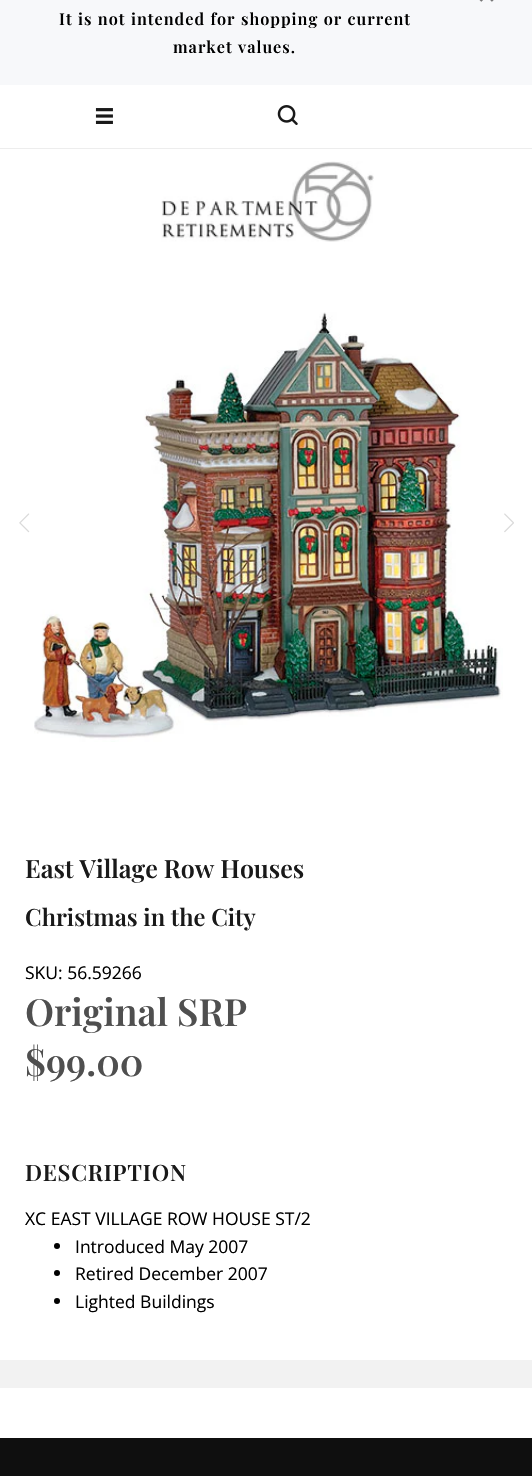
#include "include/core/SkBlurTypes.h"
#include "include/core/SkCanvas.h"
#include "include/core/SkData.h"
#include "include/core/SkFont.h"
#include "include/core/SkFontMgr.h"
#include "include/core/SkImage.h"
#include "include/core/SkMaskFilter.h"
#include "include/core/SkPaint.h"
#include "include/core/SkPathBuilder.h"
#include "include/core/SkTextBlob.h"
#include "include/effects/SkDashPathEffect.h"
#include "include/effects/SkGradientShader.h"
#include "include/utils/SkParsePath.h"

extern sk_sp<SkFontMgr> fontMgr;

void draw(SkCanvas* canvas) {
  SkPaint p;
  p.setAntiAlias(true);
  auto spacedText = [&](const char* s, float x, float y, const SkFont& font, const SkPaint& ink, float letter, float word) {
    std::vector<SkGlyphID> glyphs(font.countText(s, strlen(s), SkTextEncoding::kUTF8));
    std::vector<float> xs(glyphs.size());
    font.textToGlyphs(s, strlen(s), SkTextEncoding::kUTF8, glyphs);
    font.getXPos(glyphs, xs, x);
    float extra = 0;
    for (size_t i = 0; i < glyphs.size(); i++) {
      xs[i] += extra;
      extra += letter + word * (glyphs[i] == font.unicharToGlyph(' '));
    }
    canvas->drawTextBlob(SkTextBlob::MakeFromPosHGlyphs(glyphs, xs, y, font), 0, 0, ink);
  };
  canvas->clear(SK_ColorWHITE);
  p.setColor(SkColorSetRGB(247, 248, 250));
  canvas->drawRect(SkRect::MakeLTRB(0, 0, 532, 85), p);
  canvas->drawImageRect(SkImages::DeferredFromEncodedData(SkData::MakeFromFileName("images/1.png")), SkRect::MakeLTRB(479, 0, 494, 2), SkSamplingOptions());
  canvas->drawImageRect(SkImages::DeferredFromEncodedData(SkData::MakeFromFileName("images/2.png")), SkRect::MakeLTRB(95, 108, 113, 124), SkSamplingOptions());
  canvas->drawImageRect(SkImages::DeferredFromEncodedData(SkData::MakeFromFileName("images/3.png")), SkRect::MakeLTRB(277, 105, 298, 125), SkSamplingOptions());
  p.setColor(SkColorSetRGB(237, 237, 237));
  canvas->drawRect(SkRect::MakeLTRB(0, 148, 532, 149), p);
  canvas->drawImageRect(SkImages::DeferredFromEncodedData(SkData::MakeFromFileName("images/4.png")), SkRect::MakeLTRB(161, 161, 374, 242), SkSamplingOptions());
  canvas->drawImageRect(SkImages::DeferredFromEncodedData(SkData::MakeFromFileName("images/5.png")), SkRect::MakeLTRB(19, 513, 30, 533), SkSamplingOptions());
  canvas->drawImageRect(SkImages::DeferredFromEncodedData(SkData::MakeFromFileName("images/6.png")), SkRect::MakeLTRB(34, 312, 503, 742), SkSamplingOptions());
  canvas->drawImageRect(SkImages::DeferredFromEncodedData(SkData::MakeFromFileName("images/7.png")), SkRect::MakeLTRB(504, 513, 514, 533), SkSamplingOptions());
  p.setColor(SK_ColorBLACK);
  canvas->drawCircle(57, 1246, 3, p);
  canvas->drawCircle(57, 1273, 3, p);
  canvas->drawCircle(57, 1301, 3, p);
  p.setColor(SkColorSetRGB(242, 242, 242));
  canvas->drawRect(SkRect::MakeLTRB(0, 1360, 532, 1388), p);
  p.setColor(SkColorSetRGB(15, 15, 15));
  canvas->drawRect(SkRect::MakeLTRB(0, 1438, 532, 1476), p);
  SkFont font1(fontMgr->matchFamilyStyle("Playfair Display", SkFontStyle(600, SkFontStyle::kNormal_Width, SkFontStyle::kUpright_Slant)), 16.25f);
  font1.setSubpixel(true);
  p.setColor(SK_ColorBLACK);
  spacedText("It is not intended for shopping or current", 59, 25, font1, p, 1, 0.5f);
  spacedText("market values.", 173, 53, font1, p, 1, 0.5f);
  SkFont font2(fontMgr->matchFamilyStyle("Playfair Display", SkFontStyle(600, SkFontStyle::kNormal_Width, SkFontStyle::kUpright_Slant)), 25);
  font2.setSubpixel(true);
  p.setColor(SkColorSetRGB(25, 25, 25));
  canvas->drawString("East Village Row Houses", 25, 878, font2, p);
  SkFont font3(fontMgr->matchFamilyStyle("Playfair Display", SkFontStyle(600, SkFontStyle::kNormal_Width, SkFontStyle::kUpright_Slant)), 23.75f);
  font3.setSubpixel(true);
  canvas->drawString("Christmas in the City", 25, 926, font3, p);
  SkFont font4(fontMgr->matchFamilyStyle("Open Sans", SkFontStyle::Normal()), 17.5f);
  font4.setSubpixel(true);
  p.setColor(SK_ColorBLACK);
  canvas->drawString("SKU: 56.59266", 25, 979, font4, p);
  SkFont font5(fontMgr->matchFamilyStyle("Playfair Display", SkFontStyle(600, SkFontStyle::kNormal_Width, SkFontStyle::kUpright_Slant)), 37.5f);
  font5.setSubpixel(true);
  p.setColor(SkColorSetRGB(79, 79, 79));
  canvas->drawString("Original SRP", 25, 1026, font5, p);
  canvas->drawString("$99.00", 25, 1076, font5, p);
  SkFont font6(fontMgr->matchFamilyStyle("Playfair Display", SkFontStyle(600, SkFontStyle::kNormal_Width, SkFontStyle::kUpright_Slant)), 22.5f);
  font6.setSubpixel(true);
  p.setColor(SkColorSetRGB(25, 25, 25));
  spacedText("DESCRIPTION", 25, 1181, font6, p, 0.75f, 0);
  p.setColor(SK_ColorBLACK);
  canvas->drawString("XC EAST VILLAGE ROW HOUSE ST/2", 25, 1225, font4, p);
  canvas->drawString("Introduced May 2007", 75, 1253, font4, p);
  canvas->drawString("Retired December 2007", 75, 1280, font4, p);
  canvas->drawString("Lighted Buildings", 75, 1308, font4, p);
}
